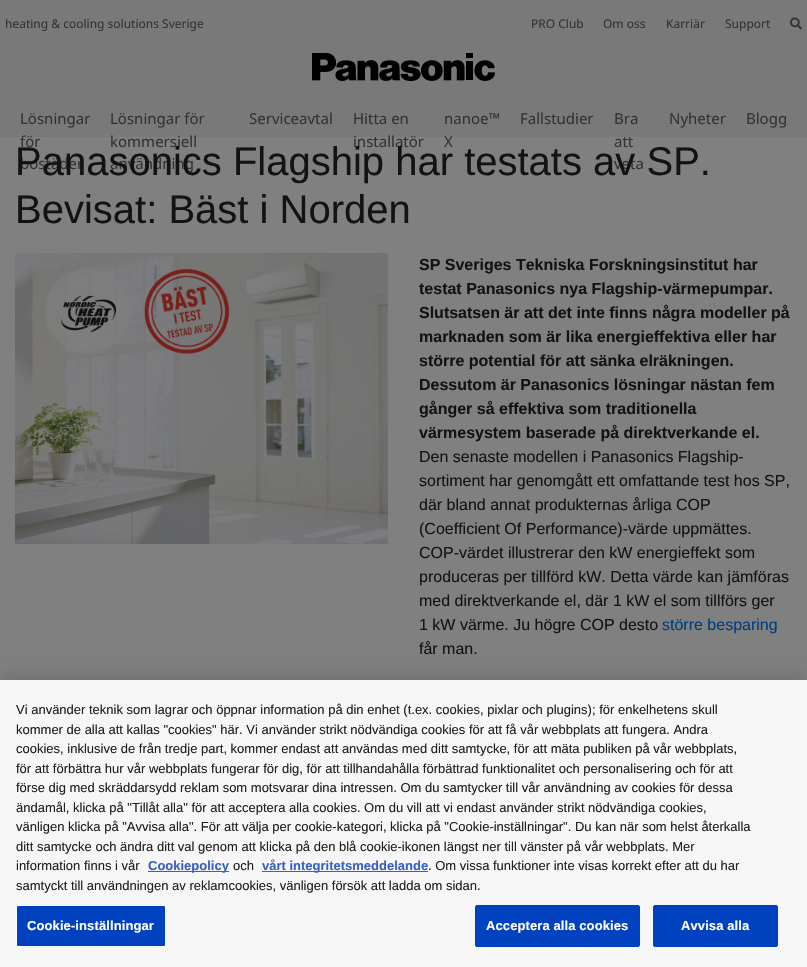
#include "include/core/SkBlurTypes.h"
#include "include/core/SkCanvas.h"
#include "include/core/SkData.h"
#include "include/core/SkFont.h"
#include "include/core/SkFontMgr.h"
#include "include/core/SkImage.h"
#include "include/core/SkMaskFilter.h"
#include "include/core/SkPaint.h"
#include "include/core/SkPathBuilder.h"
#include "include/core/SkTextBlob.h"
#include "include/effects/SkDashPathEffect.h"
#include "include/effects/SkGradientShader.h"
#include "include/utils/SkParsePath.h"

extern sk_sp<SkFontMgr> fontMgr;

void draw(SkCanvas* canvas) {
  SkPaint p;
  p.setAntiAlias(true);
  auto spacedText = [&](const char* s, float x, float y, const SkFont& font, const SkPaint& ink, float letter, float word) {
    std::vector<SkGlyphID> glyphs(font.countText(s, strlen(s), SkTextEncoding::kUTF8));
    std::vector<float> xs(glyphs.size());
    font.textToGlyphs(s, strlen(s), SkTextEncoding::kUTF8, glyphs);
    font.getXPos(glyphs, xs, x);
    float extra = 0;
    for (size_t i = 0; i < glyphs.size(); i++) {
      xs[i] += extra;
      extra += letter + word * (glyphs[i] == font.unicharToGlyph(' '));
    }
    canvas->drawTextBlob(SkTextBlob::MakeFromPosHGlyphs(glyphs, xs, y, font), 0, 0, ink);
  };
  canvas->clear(SkColorSetRGB(128, 128, 128));
  p.setColor(SkColorSetRGB(121, 121, 121));
  canvas->drawRect(SkRect::MakeLTRB(0, 0, 807, 137), p);
  canvas->drawImageRect(SkImages::DeferredFromEncodedData(SkData::MakeFromFileName("images/1.png")), SkRect::MakeLTRB(790, 17, 802, 30), SkSamplingOptions());
  canvas->drawImageRect(SkImages::DeferredFromEncodedData(SkData::MakeFromFileName("images/2.png")), SkRect::MakeLTRB(312, 53, 495, 81), SkSamplingOptions());
  canvas->drawImageRect(SkImages::DeferredFromEncodedData(SkData::MakeFromFileName("images/3.png")), SkRect::MakeLTRB(15, 253, 388, 544), SkSamplingOptions());
  p.setColor(SkColorSetARGB(51, 0, 0, 0));
  p.setMaskFilter(SkMaskFilter::MakeBlur(kNormal_SkBlurStyle, 9));
  canvas->drawRect(SkRect::MakeLTRB(0, 680, 807, 967), p);
  p.setMaskFilter(nullptr);
  p.setColor(SkColorSetRGB(246, 246, 246));
  canvas->drawRect(SkRect::MakeLTRB(0, 680, 807, 967), p);
  p.setColor(SkColorSetRGB(56, 96, 190));
  canvas->drawRect(SkRect::MakeLTRB(148, 871, 229, 872), p);
  canvas->drawRect(SkRect::MakeLTRB(262, 871, 428, 872), p);
  p.setColor(SkColorSetRGB(0, 65, 192));
  canvas->drawRoundRect(SkRect::MakeLTRB(16.5f, 905.5f, 165.5f, 946.5f), 1.5f, 1.5f, p);
  p.setStyle(SkPaint::kStroke_Style);
  p.setStrokeWidth(1);
  p.setColor(SK_ColorWHITE);
  canvas->drawRoundRect(SkRect::MakeLTRB(16.5f, 905.5f, 165.5f, 946.5f), 1.5f, 1.5f, p);
  p.setStyle(SkPaint::kFill_Style);
  p.setColor(SkColorSetRGB(0, 65, 192));
  canvas->drawRoundRect(SkRect::MakeLTRB(475.5f, 905.5f, 639.5f, 946.5f), 1.5f, 1.5f, p);
  p.setStyle(SkPaint::kStroke_Style);
  canvas->drawRoundRect(SkRect::MakeLTRB(475.5f, 905.5f, 639.5f, 946.5f), 1.5f, 1.5f, p);
  p.setStyle(SkPaint::kFill_Style);
  canvas->drawRoundRect(SkRect::MakeLTRB(653.5f, 905.5f, 777.5f, 946.5f), 1.5f, 1.5f, p);
  p.setStyle(SkPaint::kStroke_Style);
  canvas->drawRoundRect(SkRect::MakeLTRB(653.5f, 905.5f, 777.5f, 946.5f), 1.5f, 1.5f, p);
  SkFont font1(fontMgr->matchFamilyStyle("Noto Sans", SkFontStyle::Normal()), 12);
  font1.setSubpixel(true);
  p.setStyle(SkPaint::kFill_Style);
  p.setColor(SkColorSetRGB(51, 51, 51));
  canvas->drawString("heating & cooling solutions Sverige", 5, 28, font1, p);
  canvas->drawString("PRO Club", 531, 28, font1, p);
  canvas->drawString("Om oss", 603, 28, font1, p);
  canvas->drawString("Karriär", 666, 28, font1, p);
  canvas->drawString("Support", 725, 28, font1, p);
  SkFont font2(fontMgr->matchFamilyStyle("Noto Sans", SkFontStyle::Normal()), 15);
  font2.setSubpixel(true);
  canvas->drawString("Lösningar", 20, 124, font2, p);
  canvas->drawString("för", 20, 147, font2, p);
  canvas->drawString("bostäder", 20, 169, font2, p);
  canvas->drawString("Lösningar för", 110, 124, font2, p);
  canvas->drawString("kommersiell", 110, 147, font2, p);
  canvas->drawString("användning", 110, 169, font2, p);
  canvas->drawString("Serviceavtal", 249, 124, font2, p);
  canvas->drawString("Hitta en", 353, 124, font2, p);
  canvas->drawString("installatör", 353, 147, font2, p);
  canvas->drawString("nanoe™", 444, 124, font2, p);
  canvas->drawString("X", 444, 147, font2, p);
  canvas->drawString("Fallstudier", 520, 124, font2, p);
  canvas->drawString("Bra", 614, 124, font2, p);
  canvas->drawString("att", 614, 147, font2, p);
  canvas->drawString("veta", 614, 169, font2, p);
  canvas->drawString("Nyheter", 669, 124, font2, p);
  canvas->drawString("Blogg", 746, 124, font2, p);
  SkFont font3(fontMgr->matchFamilyStyle("Liberation Sans", SkFontStyle::Normal()), 40);
  font3.setSubpixel(true);
  p.setColor(SkColorSetRGB(17, 19, 21));
  canvas->drawString("Panasonics Flagship har testats av SP.", 15, 175, font3, p);
  canvas->drawString("Bevisat: Bäst i Norden", 15, 223, font3, p);
  SkFont font4(fontMgr->matchFamilyStyle("Liberation Sans", SkFontStyle::Bold()), 16);
  font4.setSubpixel(true);
  canvas->drawString("SP Sveriges Tekniska Forskningsinstitut har", 419, 270, font4, p);
  canvas->drawString("testat Panasonics nya Flagship-värmepumpar.", 419, 294, font4, p);
  canvas->drawString("Slutsatsen är att det inte finns några modeller på", 419, 318, font4, p);
  canvas->drawString("marknaden som är lika energieffektiva eller har", 419, 342, font4, p);
  canvas->drawString("större potential för att sänka elräkningen.", 419, 366, font4, p);
  canvas->drawString("Dessutom är Panasonics lösningar nästan fem", 419, 390, font4, p);
  canvas->drawString("gånger så effektiva som traditionella", 419, 414, font4, p);
  canvas->drawString("värmesystem baserade på direktverkande el.", 419, 438, font4, p);
  SkFont font5(fontMgr->matchFamilyStyle("Liberation Sans", SkFontStyle::Normal()), 16);
  font5.setSubpixel(true);
  canvas->drawString("Den senaste modellen i Panasonics Flagship-", 419, 462, font5, p);
  canvas->drawString("sortiment har genomgått ett omfattande test hos SP,", 419, 486, font5, p);
  canvas->drawString("där bland annat produkternas årliga COP", 419, 510, font5, p);
  canvas->drawString("(Coefficient Of Performance)-värde uppmättes.", 419, 534, font5, p);
  canvas->drawString("COP-värdet illustrerar den kW energieffekt som", 419, 558, font5, p);
  canvas->drawString("produceras per tillförd kW. Detta värde kan jämföras", 419, 582, font5, p);
  canvas->drawString("med direktverkande el, där 1 kW el som tillförs ger", 419, 606, font5, p);
  canvas->drawString("1 kW värme. Ju högre COP desto", 419, 630, font5, p);
  p.setColor(SkColorSetRGB(0, 62, 128));
  canvas->drawString("större besparing", 662, 630, font5, p);
  p.setColor(SkColorSetRGB(17, 19, 21));
  canvas->drawString("får man.", 419, 654, font5, p);
  SkFont font6(fontMgr->matchFamilyStyle("Liberation Sans", SkFontStyle::Normal()), 13);
  font6.setSubpixel(true);
  p.setColor(SkColorSetRGB(31, 31, 31));
  canvas->drawString("Vi använder teknik som lagrar och öppnar information på din enhet (t.ex. cookies, pixlar och plugins); för enkelhetens skull", 16, 714, font6, p);
  canvas->drawString("kommer de alla att kallas \"cookies\" här. Vi använder strikt nödvändiga cookies för att få vår webbplats att fungera. Andra", 16, 734, font6, p);
  canvas->drawString("cookies, inklusive de från tredje part, kommer endast att användas med ditt samtycke, för att mäta publiken på vår webbplats,", 16, 753, font6, p);
  canvas->drawString("för att förbättra hur vår webbplats fungerar för dig, för att tillhandahålla förbättrad funktionalitet och personalisering och för att", 16, 773, font6, p);
  canvas->drawString("förse dig med skräddarsydd reklam som motsvarar dina intressen. Om du samtycker till vår användning av cookies för dessa", 16, 792, font6, p);
  canvas->drawString("ändamål, klicka på \"Tillåt alla\" för att acceptera alla cookies. Om du vill att vi endast använder strikt nödvändiga cookies,", 16, 812, font6, p);
  canvas->drawString("vänligen klicka på \"Avvisa alla\". För att välja per cookie-kategori, klicka på \"Cookie-inställningar\". Du kan när som helst återkalla", 16, 831, font6, p);
  canvas->drawString("ditt samtycke och ändra ditt val genom att klicka på den blå cookie-ikonen längst ner till vänster på vår webbplats. Mer", 16, 851, font6, p);
  canvas->drawString("information finns i vår", 16, 870, font6, p);
  SkFont font7(fontMgr->matchFamilyStyle("Liberation Sans", SkFontStyle::Bold()), 13);
  font7.setSubpixel(true);
  p.setColor(SkColorSetRGB(56, 96, 190));
  canvas->drawString("Cookiepolicy", 148, 870, font7, p);
  p.setColor(SkColorSetRGB(31, 31, 31));
  canvas->drawString("och", 233, 870, font6, p);
  p.setColor(SkColorSetRGB(56, 96, 190));
  canvas->drawString("vårt integritetsmeddelande", 262, 870, font7, p);
  p.setColor(SkColorSetRGB(31, 31, 31));
  canvas->drawString(". Om vissa funktioner inte visas korrekt efter att du har", 428, 870, font6, p);
  canvas->drawString("samtyckt till användningen av reklamcookies, vänligen försök att ladda om sidan.", 16, 890, font6, p);
  p.setColor(SK_ColorWHITE);
  spacedText("Cookie-inställningar", 27, 930, font7, p, 0.1f, 0);
  spacedText("Acceptera alla cookies", 486, 930, font7, p, 0.1f, 0);
  spacedText("Avvisa alla", 681, 930, font7, p, 0.1f, 0);
}
